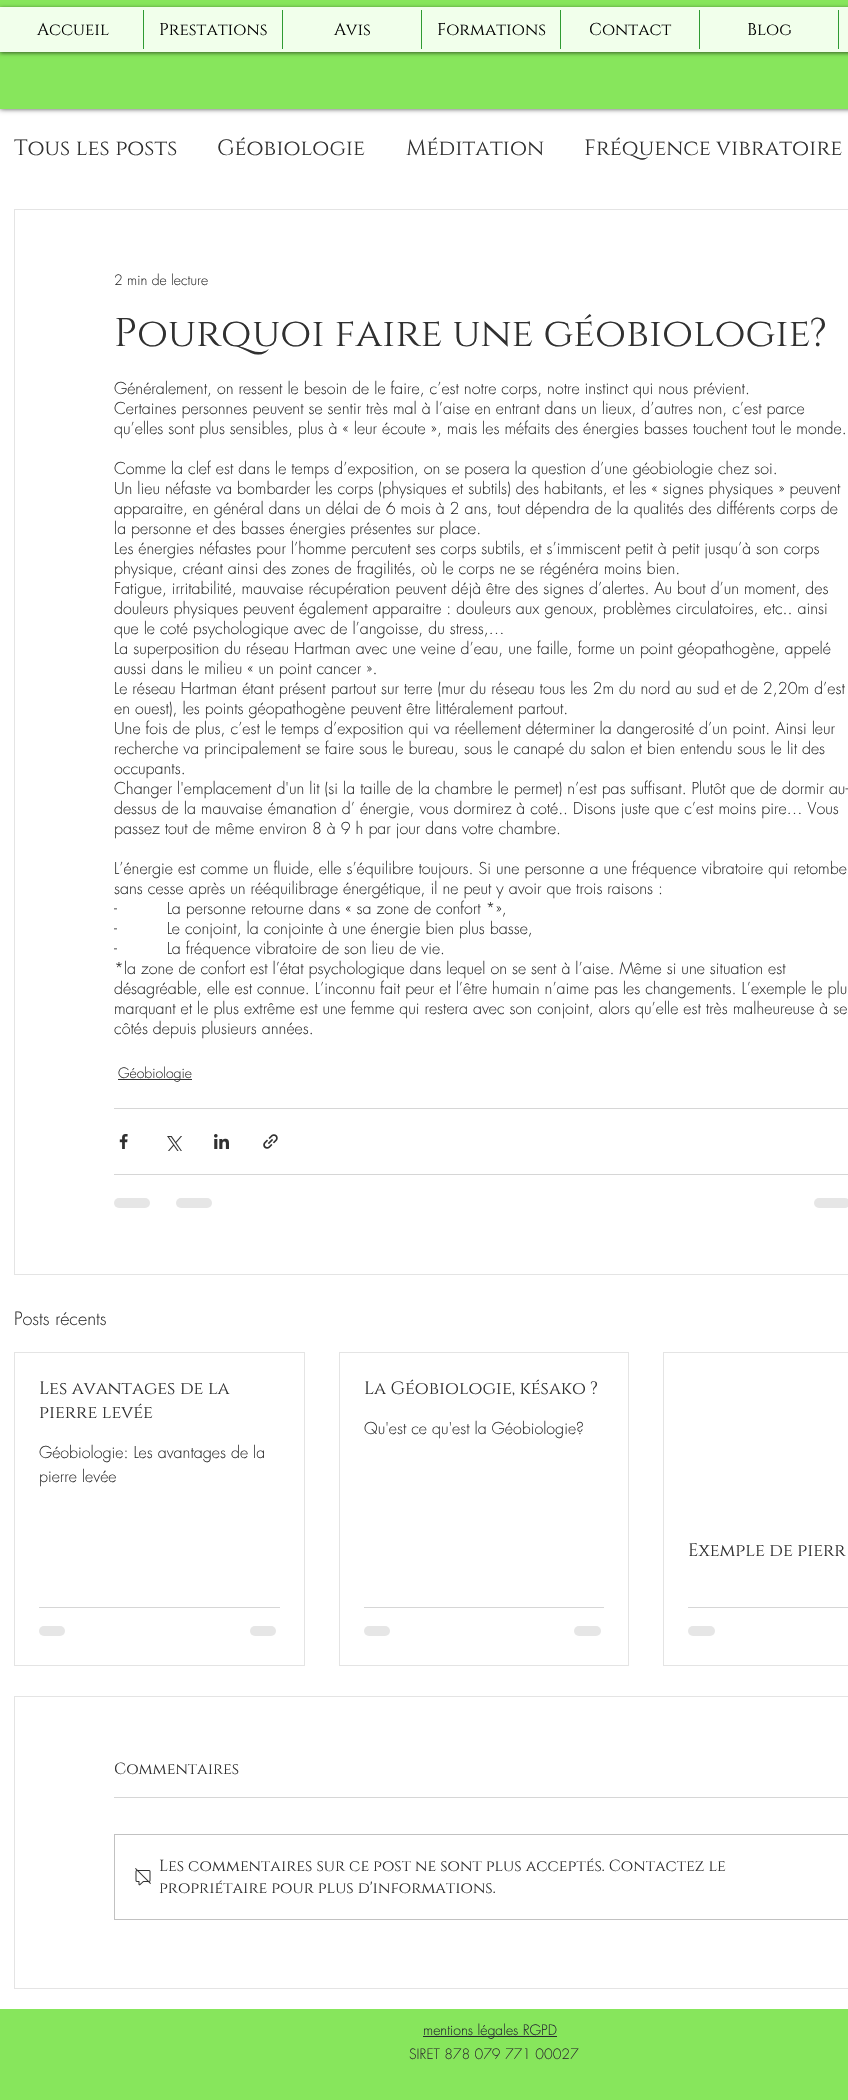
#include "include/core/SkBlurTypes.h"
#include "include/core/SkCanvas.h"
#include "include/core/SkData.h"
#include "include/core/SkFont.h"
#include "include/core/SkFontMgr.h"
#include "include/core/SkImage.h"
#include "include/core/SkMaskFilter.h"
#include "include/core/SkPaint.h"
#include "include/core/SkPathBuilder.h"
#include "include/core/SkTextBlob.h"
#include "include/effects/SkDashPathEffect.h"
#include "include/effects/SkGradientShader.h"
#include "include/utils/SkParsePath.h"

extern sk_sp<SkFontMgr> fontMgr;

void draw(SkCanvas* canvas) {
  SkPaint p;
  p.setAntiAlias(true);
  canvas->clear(SkColorSetRGB(135, 230, 92));
  p.setColor(SK_ColorWHITE);
  canvas->drawRect(SkRect::MakeLTRB(0, 109, 848, 2009), p);
  p.setColor(SkColorSetARGB(179, 0, 0, 0));
  p.setMaskFilter(SkMaskFilter::MakeBlur(kNormal_SkBlurStyle, 2.5f));
  canvas->drawRect(SkRect::MakeLTRB(0, 0, 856, 109), p);
  p.setMaskFilter(nullptr);
  p.setColor(SkColorSetRGB(135, 230, 92));
  canvas->drawRect(SkRect::MakeLTRB(0, 0, 848, 109), p);
  p.setColor(SkColorSetARGB(153, 0, 0, 0));
  p.setMaskFilter(SkMaskFilter::MakeBlur(kNormal_SkBlurStyle, 2));
  canvas->drawRect(SkRect::MakeLTRB(0, 8, 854, 53), p);
  p.setMaskFilter(nullptr);
  p.setColor(SkColorSetRGB(241, 255, 235));
  canvas->drawRect(SkRect::MakeLTRB(0, 7, 848, 52), p);
  p.setColor(SkColorSetRGB(47, 155, 50));
  canvas->drawRect(SkRect::MakeLTRB(143, 10, 144, 49), p);
  canvas->drawRect(SkRect::MakeLTRB(282, 10, 283, 49), p);
  canvas->drawRect(SkRect::MakeLTRB(421, 10, 422, 49), p);
  canvas->drawRect(SkRect::MakeLTRB(560, 10, 561, 49), p);
  canvas->drawRect(SkRect::MakeLTRB(699, 10, 700, 49), p);
  canvas->drawRect(SkRect::MakeLTRB(838, 10, 839, 49), p);
  p.setStyle(SkPaint::kStroke_Style);
  p.setStrokeWidth(1);
  p.setColor(SkColorSetRGB(228, 228, 228));
  canvas->drawRect(SkRect::MakeLTRB(14.5f, 209.5f, 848.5f, 1274.5f), p);
  p.setStyle(SkPaint::kFill_Style);
  p.setColor(SkColorSetRGB(48, 48, 48));
  canvas->drawRect(SkRect::MakeLTRB(118, 1079, 192, 1080), p);
  p.setColor(SkColorSetRGB(214, 214, 214));
  canvas->drawRect(SkRect::MakeLTRB(114, 1108, 848, 1109), p);
  canvas->drawImageRect(SkImages::DeferredFromEncodedData(SkData::MakeFromFileName("images/1.png")), SkRect::MakeLTRB(119, 1134, 128, 1149), SkSamplingOptions());
  canvas->drawImageRect(SkImages::DeferredFromEncodedData(SkData::MakeFromFileName("images/2.png")), SkRect::MakeLTRB(167, 1136, 182, 1151), SkSamplingOptions());
  canvas->drawImageRect(SkImages::DeferredFromEncodedData(SkData::MakeFromFileName("images/3.png")), SkRect::MakeLTRB(214, 1134, 229, 1149), SkSamplingOptions());
  canvas->drawImageRect(SkImages::DeferredFromEncodedData(SkData::MakeFromFileName("images/4.png")), SkRect::MakeLTRB(263, 1134, 278, 1149), SkSamplingOptions());
  canvas->drawRect(SkRect::MakeLTRB(114, 1174, 848, 1175), p);
  p.setColor(SkColorSetRGB(230, 230, 230));
  canvas->drawRoundRect(SkRect::MakeLTRB(114, 1198, 150, 1208), 5, 5, p);
  canvas->drawRoundRect(SkRect::MakeLTRB(176, 1198, 212, 1208), 5, 5, p);
  canvas->drawRoundRect(SkRect::MakeLTRB(814, 1198, 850, 1208), 5, 5, p);
  p.setStyle(SkPaint::kStroke_Style);
  p.setColor(SkColorSetRGB(228, 228, 228));
  canvas->drawRect(SkRect::MakeLTRB(14.5f, 1352.5f, 304.5f, 1665.5f), p);
  p.setStyle(SkPaint::kFill_Style);
  p.setColor(SkColorSetRGB(214, 214, 214));
  canvas->drawRect(SkRect::MakeLTRB(39, 1607, 280, 1608), p);
  p.setColor(SkColorSetRGB(230, 230, 230));
  canvas->drawRoundRect(SkRect::MakeLTRB(39, 1626, 65, 1636), 5, 5, p);
  canvas->drawRoundRect(SkRect::MakeLTRB(250, 1626, 276, 1636), 5, 5, p);
  p.setStyle(SkPaint::kStroke_Style);
  p.setColor(SkColorSetRGB(228, 228, 228));
  canvas->drawRect(SkRect::MakeLTRB(339.5f, 1352.5f, 628.5f, 1665.5f), p);
  p.setStyle(SkPaint::kFill_Style);
  p.setColor(SkColorSetRGB(214, 214, 214));
  canvas->drawRect(SkRect::MakeLTRB(364, 1607, 604, 1608), p);
  p.setColor(SkColorSetRGB(230, 230, 230));
  canvas->drawRoundRect(SkRect::MakeLTRB(364, 1626, 390, 1636), 5, 5, p);
  canvas->drawRoundRect(SkRect::MakeLTRB(574, 1626, 601, 1636), 5, 5, p);
  p.setStyle(SkPaint::kStroke_Style);
  p.setColor(SkColorSetRGB(228, 228, 228));
  canvas->drawRect(SkRect::MakeLTRB(663.5f, 1352.5f, 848.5f, 1665.5f), p);
  p.setStyle(SkPaint::kFill_Style);
  p.setColor(SkColorSetRGB(214, 214, 214));
  canvas->drawRect(SkRect::MakeLTRB(688, 1607, 848, 1608), p);
  p.setColor(SkColorSetRGB(230, 230, 230));
  canvas->drawRoundRect(SkRect::MakeLTRB(688, 1626, 715, 1636), 5, 5, p);
  p.setStyle(SkPaint::kStroke_Style);
  p.setColor(SkColorSetRGB(228, 228, 228));
  canvas->drawRect(SkRect::MakeLTRB(14.5f, 1696.5f, 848.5f, 1988.5f), p);
  p.setStyle(SkPaint::kFill_Style);
  p.setColor(SkColorSetRGB(214, 214, 214));
  canvas->drawRect(SkRect::MakeLTRB(114, 1797, 848, 1798), p);
  p.setStyle(SkPaint::kStroke_Style);
  p.setColor(SkColorSetRGB(193, 193, 193));
  canvas->drawRect(SkRect::MakeLTRB(114.5f, 1834.5f, 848.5f, 1919.5f), p);
  canvas->drawImageRect(SkImages::DeferredFromEncodedData(SkData::MakeFromFileName("images/5.png")), SkRect::MakeLTRB(135, 1868, 151, 1886), SkSamplingOptions());
  p.setStyle(SkPaint::kFill_Style);
  p.setColor(SkColorSetRGB(39, 43, 49));
  canvas->drawRect(SkRect::MakeLTRB(423, 2036, 557, 2037), p);
  SkFont font1(fontMgr->matchFamilyStyle("Cinzel", SkFontStyle::Normal()), 17);
  font1.setSubpixel(true);
  p.setColor(SK_ColorBLACK);
  canvas->drawString("Accueil", 37, 35, font1, p);
  canvas->drawString("Prestations", 159, 35, font1, p);
  canvas->drawString("Avis", 334, 35, font1, p);
  canvas->drawString("Formations", 437, 35, font1, p);
  canvas->drawString("Contact", 589, 35, font1, p);
  canvas->drawString("Blog", 747, 35, font1, p);
  SkFont font2(fontMgr->matchFamilyStyle("Cinzel", SkFontStyle::Normal()), 22);
  font2.setSubpixel(true);
  p.setColor(SkColorSetRGB(48, 48, 48));
  canvas->drawString("Tous les posts", 14, 155, font2, p);
  canvas->drawString("Géobiologie", 217, 155, font2, p);
  canvas->drawString("Méditation", 406, 155, font2, p);
  canvas->drawString("Fréquence vibratoire", 584, 155, font2, p);
  SkFont font3(fontMgr->matchFamilyStyle("futura", SkFontStyle(300, SkFontStyle::kNormal_Width, SkFontStyle::kUpright_Slant)), 14);
  font3.setSubpixel(true);
  canvas->drawString("2 min de lecture", 114, 285, font3, p);
  SkFont font4(fontMgr->matchFamilyStyle("Cinzel", SkFontStyle::Normal()), 40);
  font4.setSubpixel(true);
  canvas->drawString("Pourquoi faire une géobiologie?", 114, 346, font4, p);
  SkFont font5(fontMgr->matchFamilyStyle("futura", SkFontStyle(300, SkFontStyle::kNormal_Width, SkFontStyle::kUpright_Slant)), 16);
  font5.setSubpixel(true);
  canvas->drawString("Généralement, on ressent le besoin de le faire, c’est notre corps, notre instinct qui nous prévient.", 114, 394, font5, p);
  canvas->drawString("Certaines personnes peuvent se sentir très mal à l’aise en entrant dans un lieux, d’autres non, c’est parce", 114, 414, font5, p);
  canvas->drawString("qu’elles sont plus sensibles, plus à « leur écoute », mais les méfaits des énergies basses touchent tout le monde.", 114, 434, font5, p);
  canvas->drawString("Comme la clef est dans le temps d’exposition, on se posera la question d’une géobiologie chez soi.", 114, 474, font5, p);
  canvas->drawString("Un lieu néfaste va bombarder les corps (physiques et subtils) des habitants, et les « signes physiques » peuvent", 114, 494, font5, p);
  canvas->drawString("apparaitre, en général dans un délai de 6 mois à 2 ans, tout dépendra de la qualités des différents corps de", 114, 514, font5, p);
  canvas->drawString("la personne et des basses énergies présentes sur place.", 114, 534, font5, p);
  canvas->drawString("Les énergies néfastes pour l’homme percutent ses corps subtils, et s’immiscent petit à petit jusqu’à son corps", 114, 554, font5, p);
  canvas->drawString("physique, créant ainsi des zones de fragilités, où le corps ne se régénéra moins bien.", 114, 574, font5, p);
  canvas->drawString("Fatigue, irritabilité, mauvaise récupération peuvent déjà être des signes d’alertes. Au bout d’un moment, des", 114, 594, font5, p);
  canvas->drawString("douleurs physiques peuvent également apparaitre : douleurs aux genoux, problèmes circulatoires, etc.. ainsi", 114, 614, font5, p);
  canvas->drawString("que le coté psychologique avec de l’angoisse, du stress,…", 114, 634, font5, p);
  canvas->drawString("La superposition du réseau Hartman avec une veine d’eau, une faille, forme un point géopathogène, appelé", 114, 654, font5, p);
  canvas->drawString("aussi dans le milieu « un point cancer ».", 114, 674, font5, p);
  canvas->drawString("Le réseau Hartman étant présent partout sur terre (mur du réseau tous les 2m du nord au sud et de 2,20m d’est", 114, 694, font5, p);
  canvas->drawString("en ouest), les points géopathogène peuvent être littéralement partout.", 114, 714, font5, p);
  canvas->drawString("Une fois de plus, c’est le temps d’exposition qui va réellement déterminer la dangerosité d’un point. Ainsi leur", 114, 734, font5, p);
  canvas->drawString("recherche va principalement se faire sous le bureau, sous le canapé du salon et bien entendu sous le lit des", 114, 754, font5, p);
  canvas->drawString("occupants.", 114, 774, font5, p);
  canvas->drawString("Changer l'emplacement d'un lit (si la taille de la chambre le permet) n’est pas suffisant. Plutôt que de dormir au-", 114, 794, font5, p);
  canvas->drawString("dessus de la mauvaise émanation d’ énergie, vous dormirez à coté.. Disons juste que c’est moins pire… Vous", 114, 814, font5, p);
  canvas->drawString("passez tout de même environ 8 à 9 h par jour dans votre chambre.", 114, 834, font5, p);
  canvas->drawString("L’énergie est comme un fluide, elle s’équilibre toujours. Si une personne a une fréquence vibratoire qui retombe", 114, 874, font5, p);
  canvas->drawString("sans cesse après un rééquilibrage énergétique, il ne peut y avoir que trois raisons :", 114, 894, font5, p);
  canvas->drawString("-          La personne retourne dans « sa zone de confort *»,", 114, 914, font5, p);
  canvas->drawString("-          Le conjoint, la conjointe à une énergie bien plus basse,", 114, 934, font5, p);
  canvas->drawString("-          La fréquence vibratoire de son lieu de vie.", 114, 954, font5, p);
  canvas->drawString("*la zone de confort est l’état psychologique dans lequel on se sent à l’aise. Même si une situation est", 114, 974, font5, p);
  canvas->drawString("désagréable, elle est connue. L’inconnu fait peur et l’être humain n’aime pas les changements. L’exemple le plu", 114, 994, font5, p);
  canvas->drawString("marquant et le plus extrême est une femme qui restera avec son conjoint, alors qu’elle est très malheureuse à se", 114, 1014, font5, p);
  canvas->drawString("côtés depuis plusieurs années.", 114, 1034, font5, p);
  canvas->drawString("Géobiologie", 118, 1078, font3, p);
  SkFont font6(fontMgr->matchFamilyStyle("futura", SkFontStyle(300, SkFontStyle::kNormal_Width, SkFontStyle::kUpright_Slant)), 18);
  font6.setSubpixel(true);
  canvas->drawString("Posts récents", 14, 1325, font6, p);
  SkFont font7(fontMgr->matchFamilyStyle("Cinzel", SkFontStyle::Normal()), 18);
  font7.setSubpixel(true);
  canvas->drawString("Les avantages de la", 39, 1394, font7, p);
  canvas->drawString("pierre levée", 39, 1418, font7, p);
  canvas->drawString("Géobiologie: Les avantages de la", 39, 1458, font5, p);
  canvas->drawString("pierre levée", 39, 1482, font5, p);
  canvas->drawString("La Géobiologie, késako ?", 364, 1394, font7, p);
  canvas->drawString("Qu'est ce qu'est la Géobiologie?", 364, 1434, font5, p);
  canvas->drawString("Exemple de pierr", 688, 1556, font7, p);
  SkFont font8(fontMgr->matchFamilyStyle("Cinzel", SkFontStyle::Normal()), 16);
  font8.setSubpixel(true);
  canvas->drawString("Commentaires", 114, 1774, font8, p);
  canvas->drawString("Les commentaires sur ce post ne sont plus acceptés. Contactez le", 159, 1871, font8, p);
  canvas->drawString("propriétaire pour plus d'informations.", 159, 1893, font8, p);
  p.setColor(SkColorSetRGB(39, 43, 49));
  canvas->drawString("mentions légales RGPD", 423, 2035, font3, p);
  p.setColor(SkColorSetRGB(48, 48, 48));
  canvas->drawString("SIRET 878 079 771 00027", 409, 2059, font3, p);
}
